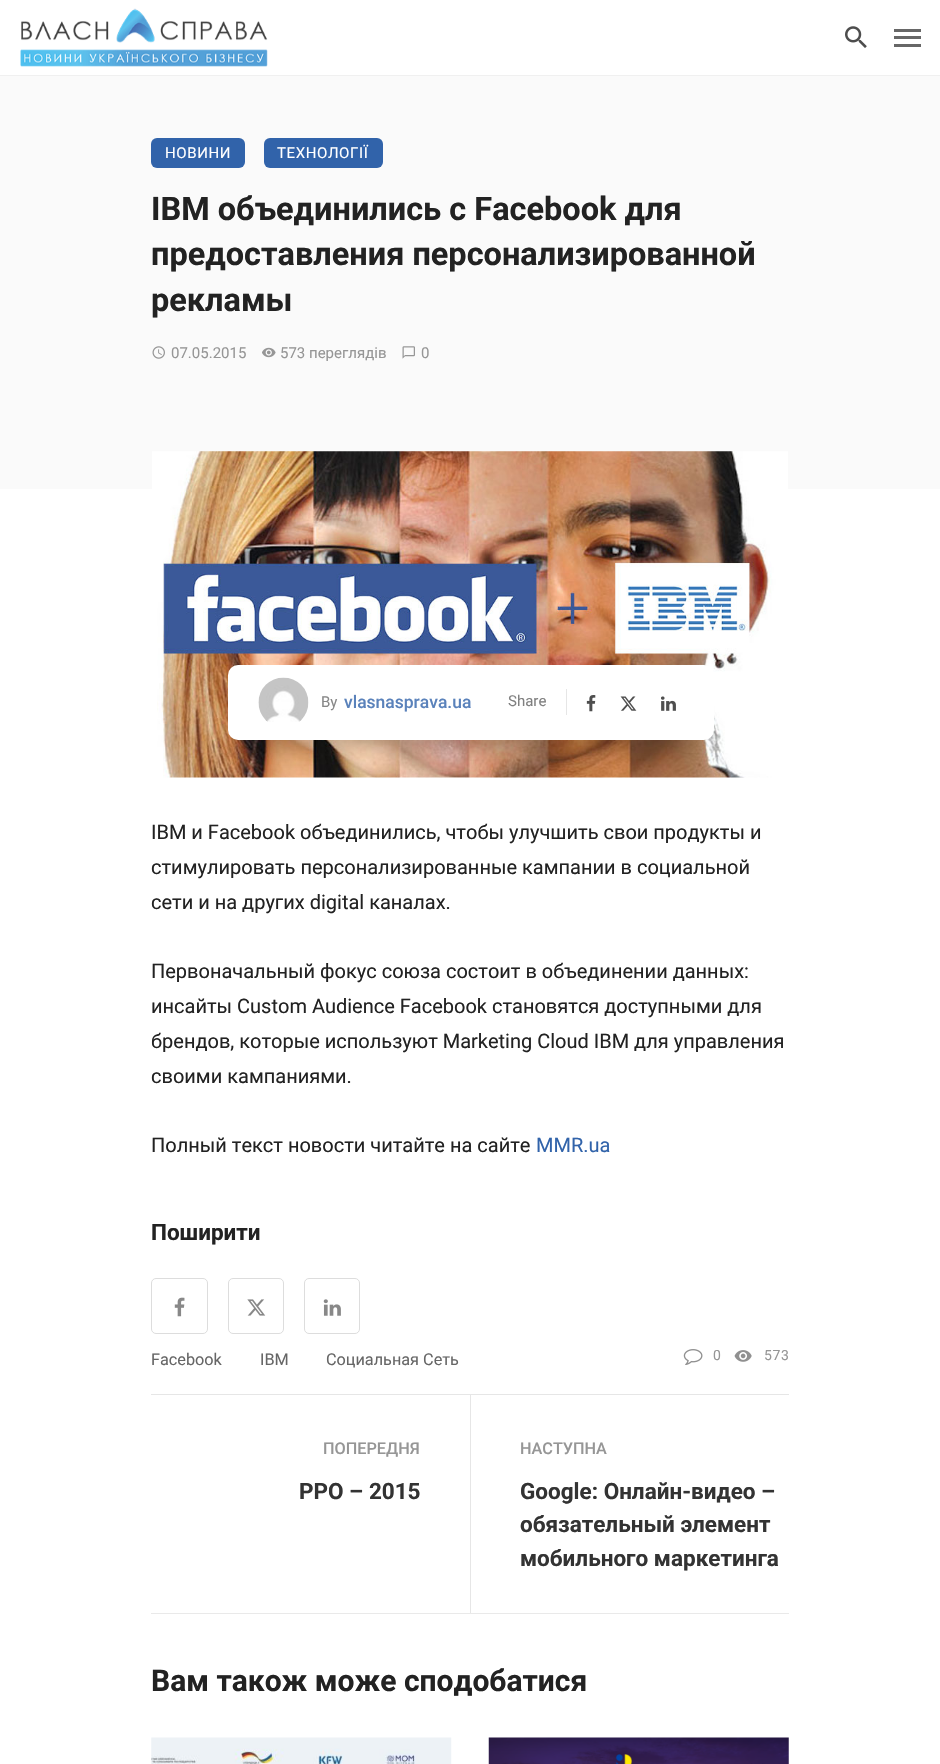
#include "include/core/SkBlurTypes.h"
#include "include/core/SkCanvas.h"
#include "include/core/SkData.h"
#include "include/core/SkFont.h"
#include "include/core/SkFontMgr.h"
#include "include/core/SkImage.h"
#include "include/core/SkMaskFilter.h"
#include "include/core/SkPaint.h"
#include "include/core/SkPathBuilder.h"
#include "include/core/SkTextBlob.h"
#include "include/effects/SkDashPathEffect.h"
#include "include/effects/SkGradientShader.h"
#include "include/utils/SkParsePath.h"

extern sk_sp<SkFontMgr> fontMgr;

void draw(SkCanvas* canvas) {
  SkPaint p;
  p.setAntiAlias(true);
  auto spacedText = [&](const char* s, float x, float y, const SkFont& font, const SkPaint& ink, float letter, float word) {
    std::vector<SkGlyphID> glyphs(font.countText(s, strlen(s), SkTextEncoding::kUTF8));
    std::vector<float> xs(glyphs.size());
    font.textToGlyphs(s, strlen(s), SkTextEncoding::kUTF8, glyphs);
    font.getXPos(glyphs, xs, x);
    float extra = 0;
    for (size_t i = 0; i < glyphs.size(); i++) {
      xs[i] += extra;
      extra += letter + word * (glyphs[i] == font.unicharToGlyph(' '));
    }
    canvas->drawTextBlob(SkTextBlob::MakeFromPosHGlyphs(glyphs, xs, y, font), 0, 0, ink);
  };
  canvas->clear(SK_ColorWHITE);
  p.setColor(SkColorSetRGB(240, 240, 240));
  canvas->drawRect(SkRect::MakeLTRB(0, 75, 940, 76), p);
  canvas->drawImageRect(SkImages::DeferredFromEncodedData(SkData::MakeFromFileName("images/1.png")), SkRect::MakeLTRB(20, 8, 268, 67), SkSamplingOptions());
  canvas->drawImageRect(SkImages::DeferredFromEncodedData(SkData::MakeFromFileName("images/2.png")), SkRect::MakeLTRB(845, 26, 867, 48), SkSamplingOptions());
  p.setColor(SkColorSetRGB(103, 103, 103));
  canvas->drawRect(SkRect::MakeLTRB(894, 36, 921, 39), p);
  canvas->drawRect(SkRect::MakeLTRB(894, 29, 921, 32), p);
  canvas->drawRect(SkRect::MakeLTRB(894, 44, 921, 47), p);
  p.setColor(SkColorSetRGB(250, 250, 250));
  canvas->drawRect(SkRect::MakeLTRB(0, 76, 940, 489), p);
  p.setColor(SkColorSetRGB(49, 99, 170));
  canvas->drawRoundRect(SkRect::MakeLTRB(151, 138, 245, 168), 6, 6, p);
  canvas->drawRoundRect(SkRect::MakeLTRB(264, 138, 383, 168), 6, 6, p);
  canvas->drawImageRect(SkImages::DeferredFromEncodedData(SkData::MakeFromFileName("images/3.png")), SkRect::MakeLTRB(152, 346, 165, 359), SkSamplingOptions());
  canvas->drawImageRect(SkImages::DeferredFromEncodedData(SkData::MakeFromFileName("images/4.png")), SkRect::MakeLTRB(262, 347, 276, 358), SkSamplingOptions());
  canvas->drawImageRect(SkImages::DeferredFromEncodedData(SkData::MakeFromFileName("images/5.png")), SkRect::MakeLTRB(402, 346, 415, 359), SkSamplingOptions());
  canvas->drawImageRect(SkImages::DeferredFromEncodedData(SkData::MakeFromFileName("images/6.png")), SkRect::MakeLTRB(152, 451, 788, 778), SkSamplingOptions());
  p.setColor(SkColorSetARGB(74, 0, 0, 0));
  p.setMaskFilter(SkMaskFilter::MakeBlur(kNormal_SkBlurStyle, 12.5f));
  canvas->drawRect(SkRect::MakeLTRB(253, 721, 689, 746), p);
  p.setMaskFilter(nullptr);
  p.setColor(SK_ColorWHITE);
  canvas->drawRoundRect(SkRect::MakeLTRB(228, 665, 714, 740), 10, 10, p);
  canvas->drawImageRect(SkImages::DeferredFromEncodedData(SkData::MakeFromFileName("images/7.png")), SkRect::MakeLTRB(258, 677, 309, 722), SkSamplingOptions());
  p.setColor(SkColorSetRGB(230, 230, 230));
  canvas->drawRect(SkRect::MakeLTRB(566, 689, 567, 715), p);
  canvas->drawImageRect(SkImages::DeferredFromEncodedData(SkData::MakeFromFileName("images/8.png")), SkRect::MakeLTRB(586, 695, 596, 712), SkSamplingOptions());
  canvas->drawImageRect(SkImages::DeferredFromEncodedData(SkData::MakeFromFileName("images/9.png")), SkRect::MakeLTRB(620, 696, 637, 711), SkSamplingOptions());
  canvas->drawImageRect(SkImages::DeferredFromEncodedData(SkData::MakeFromFileName("images/10.png")), SkRect::MakeLTRB(661, 696, 676, 711), SkSamplingOptions());
  canvas->drawRect(SkRect::MakeLTRB(151, 1394, 789, 1395), p);
  p.setStyle(SkPaint::kStroke_Style);
  p.setStrokeWidth(1);
  p.setColor(SkColorSetRGB(221, 221, 221));
  canvas->drawRoundRect(SkRect::MakeLTRB(151.5f, 1278.5f, 207.5f, 1333.5f), 4.5f, 4.5f, p);
  canvas->drawImageRect(SkImages::DeferredFromEncodedData(SkData::MakeFromFileName("images/11.png")), SkRect::MakeLTRB(174, 1297, 185, 1317), SkSamplingOptions());
  canvas->drawRoundRect(SkRect::MakeLTRB(228.5f, 1278.5f, 283.5f, 1333.5f), 4.5f, 4.5f, p);
  canvas->drawImageRect(SkImages::DeferredFromEncodedData(SkData::MakeFromFileName("images/12.png")), SkRect::MakeLTRB(247, 1299, 266, 1316), SkSamplingOptions());
  canvas->drawRoundRect(SkRect::MakeLTRB(304.5f, 1278.5f, 359.5f, 1333.5f), 4.5f, 4.5f, p);
  canvas->drawImageRect(SkImages::DeferredFromEncodedData(SkData::MakeFromFileName("images/13.png")), SkRect::MakeLTRB(323, 1299, 341, 1316), SkSamplingOptions());
  canvas->drawImageRect(SkImages::DeferredFromEncodedData(SkData::MakeFromFileName("images/14.png")), SkRect::MakeLTRB(683, 1349, 703, 1365), SkSamplingOptions());
  canvas->drawImageRect(SkImages::DeferredFromEncodedData(SkData::MakeFromFileName("images/15.png")), SkRect::MakeLTRB(734, 1350, 752, 1362), SkSamplingOptions());
  p.setStyle(SkPaint::kFill_Style);
  p.setColor(SkColorSetRGB(233, 233, 233));
  canvas->drawRect(SkRect::MakeLTRB(151, 1613, 789, 1614), p);
  p.setColor(SkColorSetRGB(230, 230, 230));
  canvas->drawRect(SkRect::MakeLTRB(470, 1395, 471, 1613), p);
  canvas->drawImageRect(SkImages::DeferredFromEncodedData(SkData::MakeFromFileName("images/16.png")), SkRect::MakeLTRB(151, 1737, 452, 1764), SkSamplingOptions());
  canvas->drawImageRect(SkImages::DeferredFromEncodedData(SkData::MakeFromFileName("images/17.png")), SkRect::MakeLTRB(488, 1737, 789, 1764), SkSamplingOptions());
  SkFont font1(fontMgr->matchFamilyStyle("Roboto", SkFontStyle::Normal()), 15);
  font1.setSubpixel(true);
  p.setColor(SK_ColorWHITE);
  spacedText("НОВИНИ", 165, 158, font1, p, 0.6f, 0);
  spacedText("ТЕХНОЛОГІЇ", 277, 158, font1, p, 0.6f, 0);
  SkFont font2(fontMgr->matchFamilyStyle("Roboto", SkFontStyle::Bold()), 32.5f);
  font2.setSubpixel(true);
  p.setColor(SkColorSetRGB(34, 34, 34));
  canvas->drawString("IBM объединились с Facebook для", 151, 220, font2, p);
  canvas->drawString("предоставления персонализированной", 151, 265, font2, p);
  canvas->drawString("рекламы", 151, 311, font2, p);
  p.setColor(SkColorSetRGB(150, 150, 150));
  canvas->drawString("07.05.2015", 171, 358, font1, p);
  canvas->drawString("573 переглядів", 280, 358, font1, p);
  canvas->drawString("0", 421, 358, font1, p);
  p.setColor(SkColorSetRGB(136, 136, 136));
  canvas->drawString("By", 321, 707, font1, p);
  SkFont font3(fontMgr->matchFamilyStyle("Roboto", SkFontStyle(500, SkFontStyle::kNormal_Width, SkFontStyle::kUpright_Slant)), 17.5f);
  font3.setSubpixel(true);
  p.setColor(SkColorSetRGB(90, 130, 187));
  canvas->drawString("vlasnasprava.ua", 344, 708, font3, p);
  p.setColor(SkColorSetRGB(128, 128, 128));
  canvas->drawString("Share", 508, 706, font1, p);
  SkFont font4(fontMgr->matchFamilyStyle("Roboto", SkFontStyle::Normal()), 20);
  font4.setSubpixel(true);
  p.setColor(SkColorSetRGB(34, 34, 34));
  canvas->drawString("IBM и Facebook объединились, чтобы улучшить свои продукты и", 151, 839, font4, p);
  canvas->drawString("стимулировать персонализированные кампании в социальной", 151, 874, font4, p);
  canvas->drawString("сети и на других digital каналах.", 151, 909, font4, p);
  canvas->drawString("Первоначальный фокус союза состоит в объединении данных:", 151, 978, font4, p);
  canvas->drawString("инсайты Custom Audience Facebook становятся доступными для", 151, 1013, font4, p);
  canvas->drawString("брендов, которые используют Marketing Cloud IBM для управления", 151, 1048, font4, p);
  canvas->drawString("своими кампаниями.", 151, 1083, font4, p);
  canvas->drawString("Полный текст новости читайте на сайте", 151, 1152, font4, p);
  p.setColor(SkColorSetRGB(49, 99, 170));
  canvas->drawString("MMR.ua", 536, 1152, font4, p);
  SkFont font5(fontMgr->matchFamilyStyle("Roboto", SkFontStyle::Bold()), 22.5f);
  font5.setSubpixel(true);
  p.setColor(SkColorSetRGB(34, 34, 34));
  canvas->drawString("Поширити", 151, 1240, font5, p);
  SkFont font6(fontMgr->matchFamilyStyle("Roboto", SkFontStyle::Normal()), 16.25f);
  font6.setSubpixel(true);
  p.setColor(SkColorSetRGB(102, 102, 102));
  canvas->drawString("Facebook", 151, 1365, font6, p);
  canvas->drawString("IBM", 260, 1365, font6, p);
  canvas->drawString("Социальная Сеть", 326, 1365, font6, p);
  SkFont font7(fontMgr->matchFamilyStyle("Roboto", SkFontStyle::Normal()), 14);
  font7.setSubpixel(true);
  p.setColor(SkColorSetRGB(150, 150, 150));
  spacedText("0", 713, 1360, font7, p, 0.6f, 0);
  spacedText("573", 764, 1360, font7, p, 0.6f, 0);
  SkFont font8(fontMgr->matchFamilyStyle("Roboto", SkFontStyle(500, SkFontStyle::kNormal_Width, SkFontStyle::kUpright_Slant)), 16.25f);
  font8.setSubpixel(true);
  canvas->drawString("ПОПЕРЕДНЯ", 323, 1454, font8, p);
  p.setColor(SkColorSetRGB(51, 51, 51));
  canvas->drawString("РРО – 2015", 299, 1499, font5, p);
  p.setColor(SkColorSetRGB(150, 150, 150));
  canvas->drawString("НАСТУПНА", 520, 1454, font8, p);
  p.setColor(SkColorSetRGB(51, 51, 51));
  canvas->drawString("Google: Онлайн-видео –", 520, 1499, font5, p);
  canvas->drawString("обязательный элемент", 520, 1532, font5, p);
  canvas->drawString("мобильного маркетинга", 520, 1566, font5, p);
  SkFont font9(fontMgr->matchFamilyStyle("Roboto", SkFontStyle::Bold()), 30);
  font9.setSubpixel(true);
  p.setColor(SkColorSetRGB(34, 34, 34));
  canvas->drawString("Вам також може сподобатися", 151, 1691, font9, p);
}
